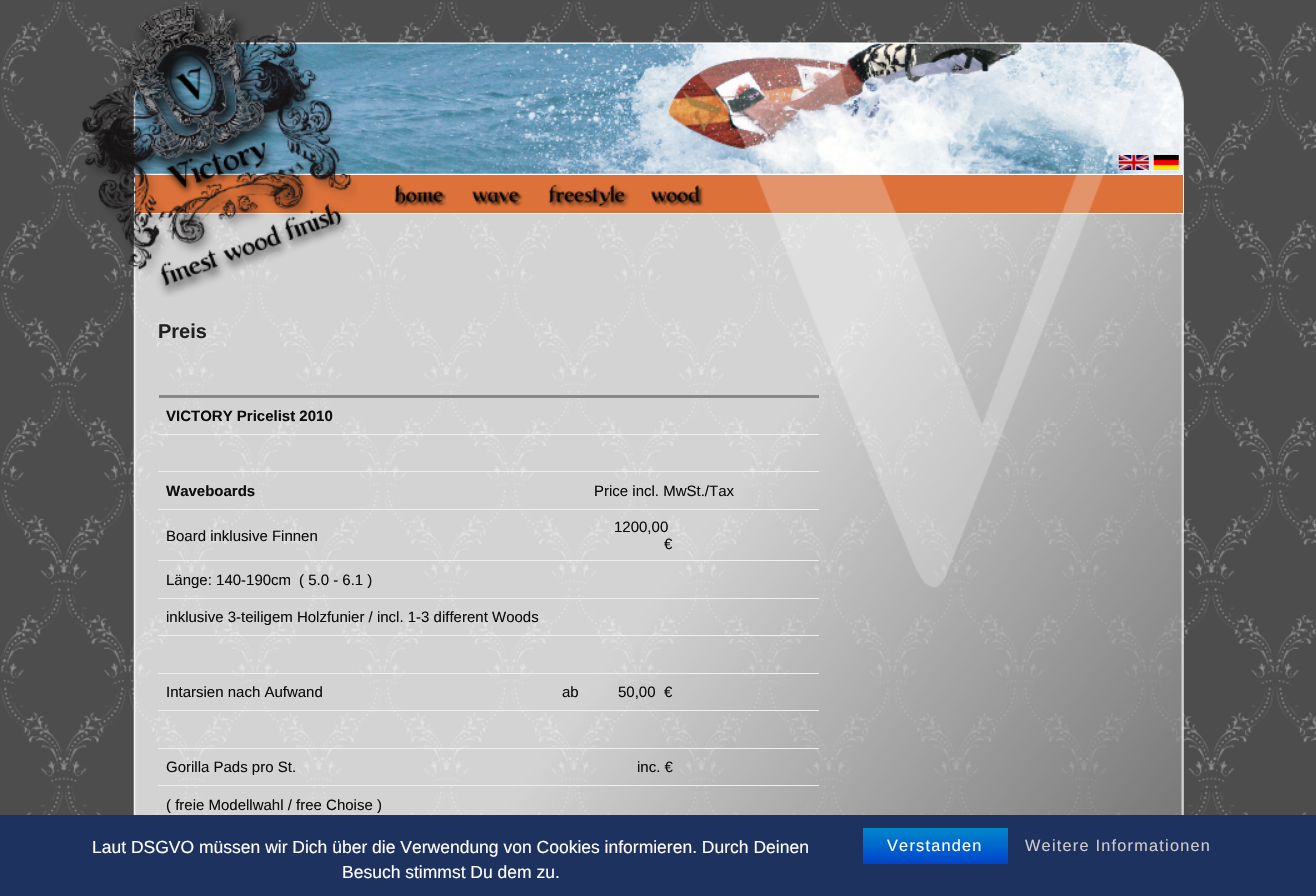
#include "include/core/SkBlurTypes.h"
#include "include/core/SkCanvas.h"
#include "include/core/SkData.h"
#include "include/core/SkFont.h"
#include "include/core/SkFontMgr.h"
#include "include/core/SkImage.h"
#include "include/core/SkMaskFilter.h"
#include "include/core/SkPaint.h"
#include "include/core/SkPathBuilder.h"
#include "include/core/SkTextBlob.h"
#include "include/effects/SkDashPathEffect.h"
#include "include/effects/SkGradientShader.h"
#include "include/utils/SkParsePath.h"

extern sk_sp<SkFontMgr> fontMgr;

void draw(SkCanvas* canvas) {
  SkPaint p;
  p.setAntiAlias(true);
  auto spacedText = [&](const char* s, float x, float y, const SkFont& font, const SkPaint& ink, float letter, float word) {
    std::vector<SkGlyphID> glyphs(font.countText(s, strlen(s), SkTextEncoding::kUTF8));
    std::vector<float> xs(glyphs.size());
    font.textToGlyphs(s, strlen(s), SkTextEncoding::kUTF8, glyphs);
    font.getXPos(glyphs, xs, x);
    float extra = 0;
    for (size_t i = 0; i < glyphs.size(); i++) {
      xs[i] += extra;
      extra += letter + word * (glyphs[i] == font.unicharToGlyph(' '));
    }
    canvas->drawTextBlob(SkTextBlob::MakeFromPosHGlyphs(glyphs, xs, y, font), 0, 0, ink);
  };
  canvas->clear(SK_ColorWHITE);
  canvas->drawImageRect(SkImages::DeferredFromEncodedData(SkData::MakeFromFileName("images/1.png")), SkRect::MakeLTRB(0, 0, 1316, 815), SkSamplingOptions());
  canvas->drawImageRect(SkImages::DeferredFromEncodedData(SkData::MakeFromFileName("images/2.png")), SkRect::MakeLTRB(133, 42, 1184, 175), SkSamplingOptions());
  p.setColor(SkColorSetRGB(220, 113, 57));
  canvas->drawRect(SkRect::MakeLTRB(135, 175, 1183, 213), p);
  canvas->drawImageRect(SkImages::DeferredFromEncodedData(SkData::MakeFromFileName("images/11.png")), SkRect::MakeLTRB(133, 213, 1184, 815), SkSamplingOptions());
  p.setColor(SK_ColorWHITE);
  canvas->drawRect(SkRect::MakeLTRB(1183, 175, 1184, 214), p);
  canvas->drawRect(SkRect::MakeLTRB(134, 213, 1184, 214), p);
  canvas->drawRect(SkRect::MakeLTRB(134, 175, 135, 214), p);
  canvas->drawImageRect(SkImages::DeferredFromEncodedData(SkData::MakeFromFileName("images/3.png")), SkRect::MakeLTRB(82, 3, 358, 297), SkSamplingOptions());
  canvas->drawImageRect(SkImages::DeferredFromEncodedData(SkData::MakeFromFileName("images/7.png")), SkRect::MakeLTRB(394, 184, 447, 208), SkSamplingOptions());
  canvas->drawImageRect(SkImages::DeferredFromEncodedData(SkData::MakeFromFileName("images/8.png")), SkRect::MakeLTRB(472, 191, 523, 207), SkSamplingOptions());
  canvas->drawImageRect(SkImages::DeferredFromEncodedData(SkData::MakeFromFileName("images/9.png")), SkRect::MakeLTRB(548, 184, 630, 208), SkSamplingOptions());
  p.setColor(SkColorSetRGB(136, 136, 136));
  canvas->drawRect(SkRect::MakeLTRB(159, 395, 819, 398), p);
  p.setColor(SkColorSetRGB(238, 238, 238));
  canvas->drawRect(SkRect::MakeLTRB(158, 434, 819, 435), p);
  canvas->drawRect(SkRect::MakeLTRB(158, 471, 819, 472), p);
  canvas->drawRect(SkRect::MakeLTRB(158, 509, 819, 510), p);
  canvas->drawRect(SkRect::MakeLTRB(158, 560, 819, 561), p);
  canvas->drawRect(SkRect::MakeLTRB(158, 598, 819, 599), p);
  canvas->drawRect(SkRect::MakeLTRB(158, 635, 819, 636), p);
  canvas->drawRect(SkRect::MakeLTRB(158, 673, 819, 674), p);
  canvas->drawRect(SkRect::MakeLTRB(158, 710, 819, 711), p);
  canvas->drawRect(SkRect::MakeLTRB(158, 748, 819, 749), p);
  canvas->drawRect(SkRect::MakeLTRB(158, 785, 819, 786), p);
  p.setColor(SkColorSetRGB(29, 50, 95));
  canvas->drawRect(SkRect::MakeLTRB(0, 815, 1316, 896), p);
  {
    const SkColor colors[] = {SkColorSetRGB(0, 136, 204), SkColorSetRGB(0, 68, 204)};
    const float stops[] = {0, 1};
    const SkPoint ends[] = {{935, 828}, {935, 864}};
    p.setShader(SkGradientShader::MakeLinear(ends, colors, stops, 2, SkTileMode::kClamp));
    p.setAlpha(255);
  }
  canvas->drawRect(SkRect::MakeLTRB(863, 828, 1008, 864), p);
  SkFont font1(fontMgr->matchFamilyStyle("Liberation Sans", SkFontStyle::Bold()), 20);
  font1.setSubpixel(true);
  p.setShader(nullptr);
  p.setColor(SkColorSetRGB(34, 34, 34));
  canvas->drawString("Preis", 158, 338, font1, p);
  SkFont font2(fontMgr->matchFamilyStyle("Liberation Sans", SkFontStyle::Bold()), 15);
  font2.setSubpixel(true);
  p.setColor(SkColorSetRGB(13, 13, 13));
  canvas->drawString("VICTORY Pricelist 2010", 166, 421, font2, p);
  canvas->drawString("Waveboards", 166, 496, font2, p);
  SkFont font3(fontMgr->matchFamilyStyle("Liberation Sans", SkFontStyle::Normal()), 15);
  font3.setSubpixel(true);
  canvas->drawString("Price incl. MwSt./Tax", 594, 496, font3, p);
  canvas->drawString("Board inklusive Finnen", 166, 541, font3, p);
  canvas->drawString("1200,00", 614, 532, font3, p);
  canvas->drawString("€", 664, 549, font3, p);
  canvas->drawImageRect(SkImages::DeferredFromEncodedData(SkData::MakeFromFileName("images/4.png")), SkRect::MakeLTRB(671, 42, 1171, 588), SkSamplingOptions());
  canvas->drawImageRect(SkImages::DeferredFromEncodedData(SkData::MakeFromFileName("images/10.png")), SkRect::MakeLTRB(651, 185, 704, 207), SkSamplingOptions());
  canvas->drawImageRect(SkImages::DeferredFromEncodedData(SkData::MakeFromFileName("images/6.png")), SkRect::MakeLTRB(1153, 155, 1179, 170), SkSamplingOptions());
  canvas->drawImageRect(SkImages::DeferredFromEncodedData(SkData::MakeFromFileName("images/5.png")), SkRect::MakeLTRB(1118, 155, 1149, 170), SkSamplingOptions());
  canvas->drawString("Länge: 140-190cm", 166, 585, font3, p);
  canvas->drawString("( 5.0 - 6.1 )", 299, 585, font3, p);
  canvas->drawString("inklusive 3-teiligem Holzfunier / incl. 1-3 different Woods", 166, 622, font3, p);
  canvas->drawString("Intarsien nach Aufwand", 166, 697, font3, p);
  canvas->drawString("ab", 562, 697, font3, p);
  canvas->drawString("50,00", 618, 697, font3, p);
  canvas->drawString("€", 664, 697, font3, p);
  canvas->drawString("Gorilla Pads pro St.", 166, 772, font3, p);
  canvas->drawString("inc. €", 637, 772, font3, p);
  canvas->drawString("( freie Modellwahl / free Choise )", 166, 810, font3, p);
  SkFont font4(fontMgr->matchFamilyStyle("Liberation Sans", SkFontStyle::Normal()), 17.5f);
  font4.setSubpixel(true);
  p.setColor(SK_ColorWHITE);
  canvas->drawString("Laut DSGVO müssen wir Dich über die Verwendung von Cookies informieren. Durch Deinen", 92, 853, font4, p);
  canvas->drawString("Besuch stimmst Du dem zu.", 342, 878, font4, p);
  SkFont font5(fontMgr->matchFamilyStyle("Liberation Sans", SkFontStyle::Normal()), 16.25f);
  font5.setSubpixel(true);
  spacedText("Verstanden", 887, 851, font5, p, 1.25f, 0);
  p.setColor(SkColorSetRGB(204, 204, 204));
  spacedText("Weitere Informationen", 1025, 851, font5, p, 1.25f, 0);
}
